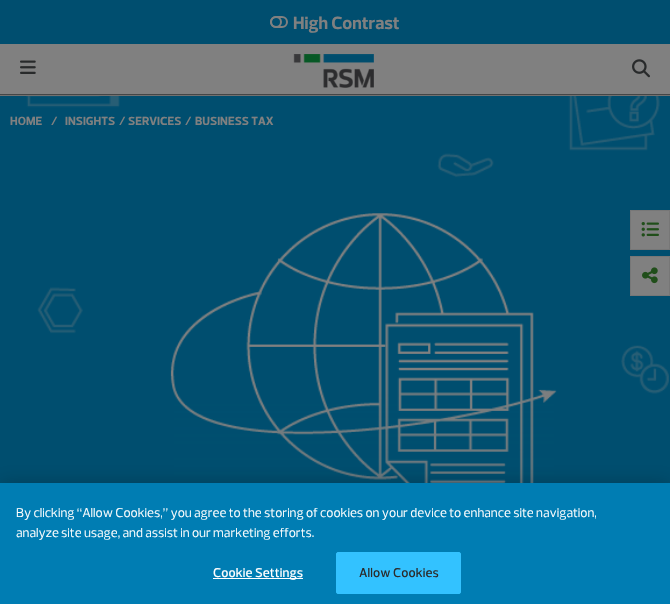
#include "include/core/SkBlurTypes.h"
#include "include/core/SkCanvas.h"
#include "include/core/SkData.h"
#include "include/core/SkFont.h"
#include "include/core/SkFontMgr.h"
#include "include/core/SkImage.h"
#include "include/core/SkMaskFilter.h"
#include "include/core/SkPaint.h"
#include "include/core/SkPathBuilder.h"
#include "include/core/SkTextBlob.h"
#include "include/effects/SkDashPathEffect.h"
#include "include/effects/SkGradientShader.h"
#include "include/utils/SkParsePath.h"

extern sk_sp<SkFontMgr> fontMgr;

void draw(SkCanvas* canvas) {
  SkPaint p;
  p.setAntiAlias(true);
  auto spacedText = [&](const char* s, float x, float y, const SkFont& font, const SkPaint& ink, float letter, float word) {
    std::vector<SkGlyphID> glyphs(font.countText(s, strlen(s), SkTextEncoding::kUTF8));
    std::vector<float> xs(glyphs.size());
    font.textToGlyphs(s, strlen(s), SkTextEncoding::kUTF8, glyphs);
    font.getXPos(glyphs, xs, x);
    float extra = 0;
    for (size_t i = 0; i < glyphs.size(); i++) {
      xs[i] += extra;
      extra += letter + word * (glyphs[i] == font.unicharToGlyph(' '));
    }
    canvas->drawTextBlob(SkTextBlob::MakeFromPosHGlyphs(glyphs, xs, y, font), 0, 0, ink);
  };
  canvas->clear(SkColorSetRGB(128, 128, 128));
  p.setColor(SkColorSetRGB(113, 113, 112));
  canvas->drawRect(SkRect::MakeLTRB(0, 95, 670, 96), p);
  p.setColor(SkColorSetRGB(0, 78, 111));
  canvas->drawRect(SkRect::MakeLTRB(0, 0, 670, 44), p);
  p.setStyle(SkPaint::kStroke_Style);
  p.setStrokeWidth(2);
  p.setColor(SkColorSetRGB(128, 128, 128));
  canvas->drawRoundRect(SkRect::MakeLTRB(271, 17, 287, 27), 5, 5, p);
  canvas->drawCircle(276, 22, 5, p);
  p.setStyle(SkPaint::kFill_Style);
  p.setColor(SkColorSetRGB(68, 70, 71));
  canvas->drawRect(SkRect::MakeLTRB(0, 94, 670, 95), p);
  canvas->drawImageRect(SkImages::DeferredFromEncodedData(SkData::MakeFromFileName("images/1.png")), SkRect::MakeLTRB(20, 60, 36, 74), SkSamplingOptions());
  canvas->drawImageRect(SkImages::DeferredFromEncodedData(SkData::MakeFromFileName("images/2.png")), SkRect::MakeLTRB(293, 54, 374, 88), SkSamplingOptions());
  canvas->drawImageRect(SkImages::DeferredFromEncodedData(SkData::MakeFromFileName("images/3.png")), SkRect::MakeLTRB(632, 59, 650, 78), SkSamplingOptions());
  p.setColor(SkColorSetRGB(0, 78, 111));
  canvas->drawRect(SkRect::MakeLTRB(0, 96, 670, 483), p);
  canvas->drawImageRect(SkImages::DeferredFromEncodedData(SkData::MakeFromFileName("images/4.png")), SkRect::MakeLTRB(26, 96, 669, 483), SkSamplingOptions());
  {
    const SkColor colors[] = {SkColorSetARGB(179, 0, 78, 111), SkColorSetARGB(0, 0, 78, 111)};
    const float stops[] = {0, 0.6f};
    const SkPoint ends[] = {{335, 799}, {335, 95}};
    p.setShader(SkGradientShader::MakeLinear(ends, colors, stops, 2, SkTileMode::kClamp));
    p.setAlpha(255);
  }
  canvas->drawRect(SkRect::MakeLTRB(174, 390, 554, 483), p);
  p.setShader(nullptr);
  p.setColor(SkColorSetRGB(128, 128, 128));
  canvas->drawRect(SkRect::MakeLTRB(630.5f, 210.5f, 669.5f, 249.5f), p);
  p.setStyle(SkPaint::kStroke_Style);
  p.setStrokeWidth(1);
  p.setColor(SkColorSetRGB(119, 119, 119));
  canvas->drawRect(SkRect::MakeLTRB(630.5f, 210.5f, 669.5f, 249.5f), p);
  canvas->drawImageRect(SkImages::DeferredFromEncodedData(SkData::MakeFromFileName("images/5.png")), SkRect::MakeLTRB(641, 222, 659, 237), SkSamplingOptions());
  p.setStyle(SkPaint::kFill_Style);
  p.setColor(SkColorSetRGB(128, 128, 128));
  canvas->drawRect(SkRect::MakeLTRB(630.5f, 256.5f, 669.5f, 295.5f), p);
  p.setStyle(SkPaint::kStroke_Style);
  p.setColor(SkColorSetRGB(119, 119, 119));
  canvas->drawRect(SkRect::MakeLTRB(630.5f, 256.5f, 669.5f, 295.5f), p);
  canvas->drawImageRect(SkImages::DeferredFromEncodedData(SkData::MakeFromFileName("images/6.png")), SkRect::MakeLTRB(642, 267, 658, 284), SkSamplingOptions());
  p.setStyle(SkPaint::kFill_Style);
  p.setColor(SkColorSetARGB(51, 0, 0, 0));
  p.setMaskFilter(SkMaskFilter::MakeBlur(kNormal_SkBlurStyle, 9));
  canvas->drawRect(SkRect::MakeLTRB(0, 483, 670, 604), p);
  p.setMaskFilter(nullptr);
  p.setColor(SkColorSetRGB(0, 125, 179));
  canvas->drawRect(SkRect::MakeLTRB(0, 483, 670, 604), p);
  p.setColor(SK_ColorWHITE);
  canvas->drawRect(SkRect::MakeLTRB(213, 578, 303, 579), p);
  p.setColor(SkColorSetRGB(51, 194, 255));
  canvas->drawRoundRect(SkRect::MakeLTRB(336.5f, 552.5f, 460.5f, 593.5f), 1.5f, 1.5f, p);
  p.setStyle(SkPaint::kStroke_Style);
  canvas->drawRoundRect(SkRect::MakeLTRB(336.5f, 552.5f, 460.5f, 593.5f), 1.5f, 1.5f, p);
  SkFont font1(fontMgr->matchFamilyStyle("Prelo", SkFontStyle::Bold()), 18);
  font1.setSubpixel(true);
  p.setStyle(SkPaint::kFill_Style);
  p.setColor(SkColorSetRGB(128, 128, 128));
  canvas->drawString("High Contrast", 293, 29, font1, p);
  SkFont font2(fontMgr->matchFamilyStyle("Prelo", SkFontStyle::Bold()), 12);
  font2.setSubpixel(true);
  canvas->drawString("HOME", 10, 125, font2, p);
  canvas->drawString("/", 51, 125, font2, p);
  canvas->drawString("INSIGHTS", 65, 125, font2, p);
  canvas->drawString("/", 119, 125, font2, p);
  canvas->drawString("SERVICES", 128, 125, font2, p);
  canvas->drawString("/", 185, 125, font2, p);
  canvas->drawString("BUSINESS TAX", 195, 125, font2, p);
  SkFont font3(fontMgr->matchFamilyStyle("Prelo", SkFontStyle::Normal()), 13);
  font3.setSubpixel(true);
  p.setColor(SK_ColorWHITE);
  canvas->drawString("By clicking “Allow Cookies,” you agree to the storing of cookies on your device to enhance site navigation,", 16, 517, font3, p);
  canvas->drawString("analyze site usage, and assist in our marketing efforts.", 16, 537, font3, p);
  SkFont font4(fontMgr->matchFamilyStyle("Prelo", SkFontStyle(500, SkFontStyle::kNormal_Width, SkFontStyle::kUpright_Slant)), 13);
  font4.setSubpixel(true);
  spacedText("Cookie Settings", 213, 577, font4, p, 0.1f, 0);
  p.setColor(SkColorSetRGB(43, 43, 43));
  spacedText("Allow Cookies", 359, 577, font4, p, 0.1f, 0);
}
